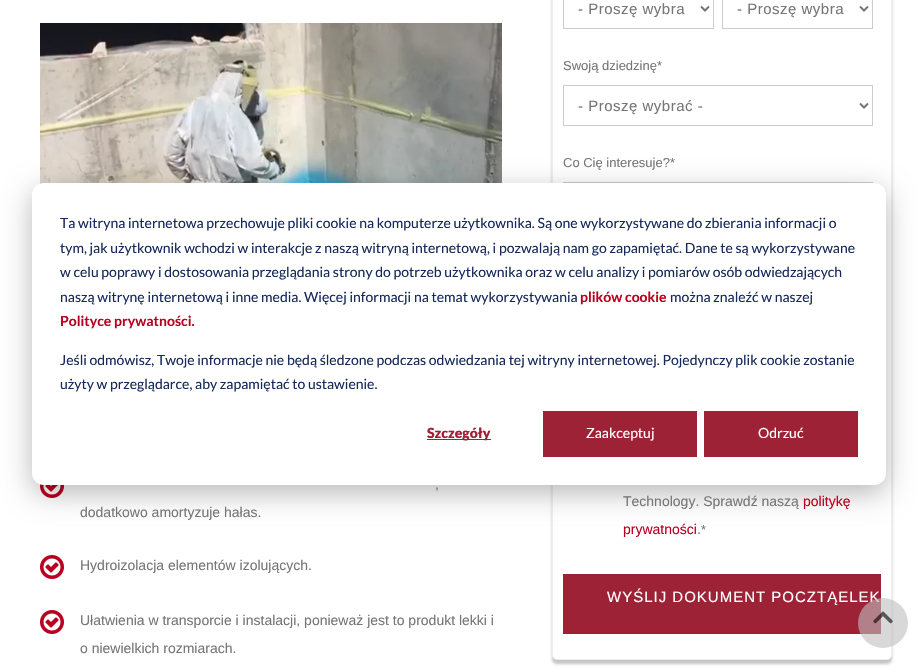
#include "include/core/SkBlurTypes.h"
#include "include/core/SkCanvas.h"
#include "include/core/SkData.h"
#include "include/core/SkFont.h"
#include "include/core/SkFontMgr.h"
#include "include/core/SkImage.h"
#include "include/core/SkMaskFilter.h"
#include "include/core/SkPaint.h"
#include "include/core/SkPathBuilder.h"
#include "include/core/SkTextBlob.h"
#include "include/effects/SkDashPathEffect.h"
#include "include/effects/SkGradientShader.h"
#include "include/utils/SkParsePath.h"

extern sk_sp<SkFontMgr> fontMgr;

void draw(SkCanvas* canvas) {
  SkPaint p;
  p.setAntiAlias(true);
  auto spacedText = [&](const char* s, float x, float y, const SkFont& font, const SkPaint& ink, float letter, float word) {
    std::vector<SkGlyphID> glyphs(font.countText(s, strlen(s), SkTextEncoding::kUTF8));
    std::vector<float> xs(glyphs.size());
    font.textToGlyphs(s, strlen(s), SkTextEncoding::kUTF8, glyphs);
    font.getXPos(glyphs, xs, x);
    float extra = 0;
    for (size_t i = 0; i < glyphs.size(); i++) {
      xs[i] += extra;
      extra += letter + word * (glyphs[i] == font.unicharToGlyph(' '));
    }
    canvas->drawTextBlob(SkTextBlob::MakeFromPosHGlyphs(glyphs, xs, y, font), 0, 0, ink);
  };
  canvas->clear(SK_ColorWHITE);
  canvas->drawImageRect(SkImages::DeferredFromEncodedData(SkData::MakeFromFileName("images/1.png")), SkRect::MakeLTRB(40, 23, 502, 184), SkSamplingOptions());
  canvas->drawImageRect(SkImages::DeferredFromEncodedData(SkData::MakeFromFileName("images/2.png")), SkRect::MakeLTRB(40, 484, 64, 498), SkSamplingOptions());
  canvas->drawImageRect(SkImages::DeferredFromEncodedData(SkData::MakeFromFileName("images/3.png")), SkRect::MakeLTRB(40, 555, 64, 579), SkSamplingOptions());
  canvas->drawImageRect(SkImages::DeferredFromEncodedData(SkData::MakeFromFileName("images/3.png")), SkRect::MakeLTRB(40, 610, 64, 634), SkSamplingOptions());
  p.setColor(SkColorSetARGB(102, 108, 108, 108));
  p.setMaskFilter(SkMaskFilter::MakeBlur(kNormal_SkBlurStyle, 1.5f));
  canvas->drawRoundRect(SkRect::MakeLTRB(552, -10, 892, 664), 5, 5, p);
  p.setMaskFilter(nullptr);
  p.setColor(SK_ColorWHITE);
  canvas->drawRoundRect(SkRect::MakeLTRB(552.5f, -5.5f, 891.5f, 659.5f), 4.5f, 4.5f, p);
  p.setStyle(SkPaint::kStroke_Style);
  p.setStrokeWidth(1);
  p.setColor(SkColorSetRGB(238, 238, 238));
  canvas->drawRoundRect(SkRect::MakeLTRB(552.5f, -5.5f, 891.5f, 659.5f), 4.5f, 4.5f, p);
  p.setColor(SkColorSetRGB(204, 204, 204));
  canvas->drawRect(SkRect::MakeLTRB(563.5f, -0.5f, 713.5f, 28.5f), p);
  p.setStrokeWidth(2);
  p.setColor(SkColorSetRGB(118, 118, 118));
  canvas->drawPath(SkPathBuilder().moveTo(701, 6.5f).lineTo(705, 10.5f).lineTo(709, 6.5f).detach(), p);
  p.setStrokeWidth(1);
  p.setColor(SkColorSetRGB(204, 204, 204));
  canvas->drawRect(SkRect::MakeLTRB(722.5f, -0.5f, 872.5f, 28.5f), p);
  p.setStrokeWidth(2);
  p.setColor(SkColorSetRGB(118, 118, 118));
  canvas->drawPath(SkPathBuilder().moveTo(860, 6.5f).lineTo(864, 10.5f).lineTo(868, 6.5f).detach(), p);
  p.setStrokeWidth(1);
  p.setColor(SkColorSetRGB(204, 204, 204));
  canvas->drawRect(SkRect::MakeLTRB(563.5f, 85.5f, 872.5f, 125.5f), p);
  p.setStrokeWidth(2);
  p.setColor(SkColorSetRGB(118, 118, 118));
  canvas->drawPath(SkPathBuilder().moveTo(860, 103.5f).lineTo(864, 107.5f).lineTo(868, 103.5f).detach(), p);
  p.setStrokeWidth(1);
  p.setColor(SkColorSetRGB(204, 204, 204));
  canvas->drawRect(SkRect::MakeLTRB(563.5f, 182.5f, 872.5f, 222.5f), p);
  p.setStyle(SkPaint::kFill_Style);
  p.setColor(SkColorSetRGB(157, 34, 53));
  canvas->drawRect(SkRect::MakeLTRB(563, 574, 881, 634), p);
  p.setColor(SkColorSetARGB(71, 0, 0, 0));
  p.setMaskFilter(SkMaskFilter::MakeBlur(kNormal_SkBlurStyle, 14));
  canvas->drawRoundRect(SkRect::MakeLTRB(32, 191, 886, 493), 12, 12, p);
  p.setMaskFilter(nullptr);
  p.setColor(SK_ColorWHITE);
  canvas->drawRoundRect(SkRect::MakeLTRB(32, 183, 886, 485), 12, 12, p);
  p.setColor(SkColorSetRGB(157, 34, 53));
  canvas->drawRect(SkRect::MakeLTRB(427, 439, 491, 440), p);
  canvas->drawRect(SkRect::MakeLTRB(543, 411, 697, 457), p);
  canvas->drawRect(SkRect::MakeLTRB(704, 411, 858, 457), p);
  SkFont font1(fontMgr->matchFamilyStyle("Liberation Sans", SkFontStyle::Normal()), 14);
  font1.setSubpixel(true);
  p.setColor(SkColorSetRGB(118, 118, 118));
  canvas->drawString(",", 435, 489, font1, p);
  canvas->drawString("dodatkowo amortyzuje hałas.", 80, 517, font1, p);
  canvas->drawString("Hydroizolacja elementów izolujących.", 80, 570, font1, p);
  canvas->drawString("Ułatwienia w transporcie i instalacji, ponieważ jest to produkt lekki i", 80, 625, font1, p);
  canvas->drawString("o niewielkich rozmiarach.", 80, 653, font1, p);
  SkFont font2(fontMgr->matchFamilyStyle("Liberation Sans", SkFontStyle::Normal()), 15);
  font2.setSubpixel(true);
  spacedText("- Proszę wybra", 578, 14, font2, p, 0.5f, 0);
  spacedText("- Proszę wybra", 737, 14, font2, p, 0.5f, 0);
  SkFont font3(fontMgr->matchFamilyStyle("Liberation Sans", SkFontStyle::Normal()), 13);
  font3.setSubpixel(true);
  canvas->drawString("Swoją dziedzinę*", 563, 70, font3, p);
  spacedText("- Proszę wybrać -", 578, 111, font2, p, 0.5f, 0);
  canvas->drawString("Co Cię interesuje?*", 563, 167, font3, p);
  canvas->drawString("Technology. Sprawdź naszą", 623, 506, font1, p);
  p.setColor(SkColorSetRGB(186, 0, 32));
  canvas->drawString("politykę", 803, 506, font1, p);
  canvas->drawString("prywatności", 623, 534, font1, p);
  p.setColor(SkColorSetRGB(118, 118, 118));
  canvas->drawString("*", 701, 534, font3, p);
  canvas->drawString(".", 697, 534, font1, p);
  p.setColor(SK_ColorWHITE);
  spacedText("WYŚLIJ DOKUMENT POCZTĄELEK", 607, 602, font2, p, 1, 0);
  p.setColor(SkColorSetARGB(153, 190, 190, 190));
  canvas->drawCircle(883, 623, 25, p);
  canvas->drawImageRect(SkImages::DeferredFromEncodedData(SkData::MakeFromFileName("images/4.png")), SkRect::MakeLTRB(873, 611, 893, 624), SkSamplingOptions());
  SkFont font4(fontMgr->matchFamilyStyle("Lato", SkFontStyle::Normal()), 14);
  font4.setSubpixel(true);
  p.setColor(SkColorSetRGB(21, 41, 90));
  canvas->drawString("Ta witryna internetowa przechowuje pliki cookie na komputerze użytkownika. Są one wykorzystywane do zbierania informacji o", 60, 228, font4, p);
  canvas->drawString("tym, jak użytkownik wchodzi w interakcje z naszą witryną internetową, i pozwalają nam go zapamiętać. Dane te są wykorzystywane", 60, 253, font4, p);
  canvas->drawString("w celu poprawy i dostosowania przeglądania strony do potrzeb użytkownika oraz w celu analizy i pomiarów osób odwiedzających", 60, 277, font4, p);
  canvas->drawString("naszą witrynę internetową i inne media. Więcej informacji na temat wykorzystywania", 60, 302, font4, p);
  SkFont font5(fontMgr->matchFamilyStyle("Lato", SkFontStyle::Bold()), 14);
  font5.setSubpixel(true);
  p.setColor(SkColorSetRGB(186, 0, 32));
  canvas->drawString("plików cookie", 580, 302, font5, p);
  p.setColor(SkColorSetRGB(21, 41, 90));
  canvas->drawString("można znaleźć w naszej", 670, 302, font4, p);
  p.setColor(SkColorSetRGB(186, 0, 32));
  canvas->drawString("Polityce prywatności.", 60, 326, font5, p);
  p.setColor(SkColorSetRGB(21, 41, 90));
  canvas->drawString("Jeśli odmówisz, Twoje informacje nie będą śledzone podczas odwiedzania tej witryny internetowej. Pojedynczy plik cookie zostanie", 60, 365, font4, p);
  canvas->drawString("użyty w przeglądarce, aby zapamiętać to ustawienie.", 60, 389, font4, p);
  SkFont font6(fontMgr->matchFamilyStyle("Lato", SkFontStyle(900, SkFontStyle::kNormal_Width, SkFontStyle::kUpright_Slant)), 14);
  font6.setSubpixel(true);
  p.setColor(SkColorSetRGB(157, 34, 53));
  canvas->drawString("Szczegóły", 427, 438, font6, p);
  p.setColor(SK_ColorWHITE);
  canvas->drawString("Zaakceptuj", 586, 438, font4, p);
  canvas->drawString("Odrzuć", 758, 438, font4, p);
}
